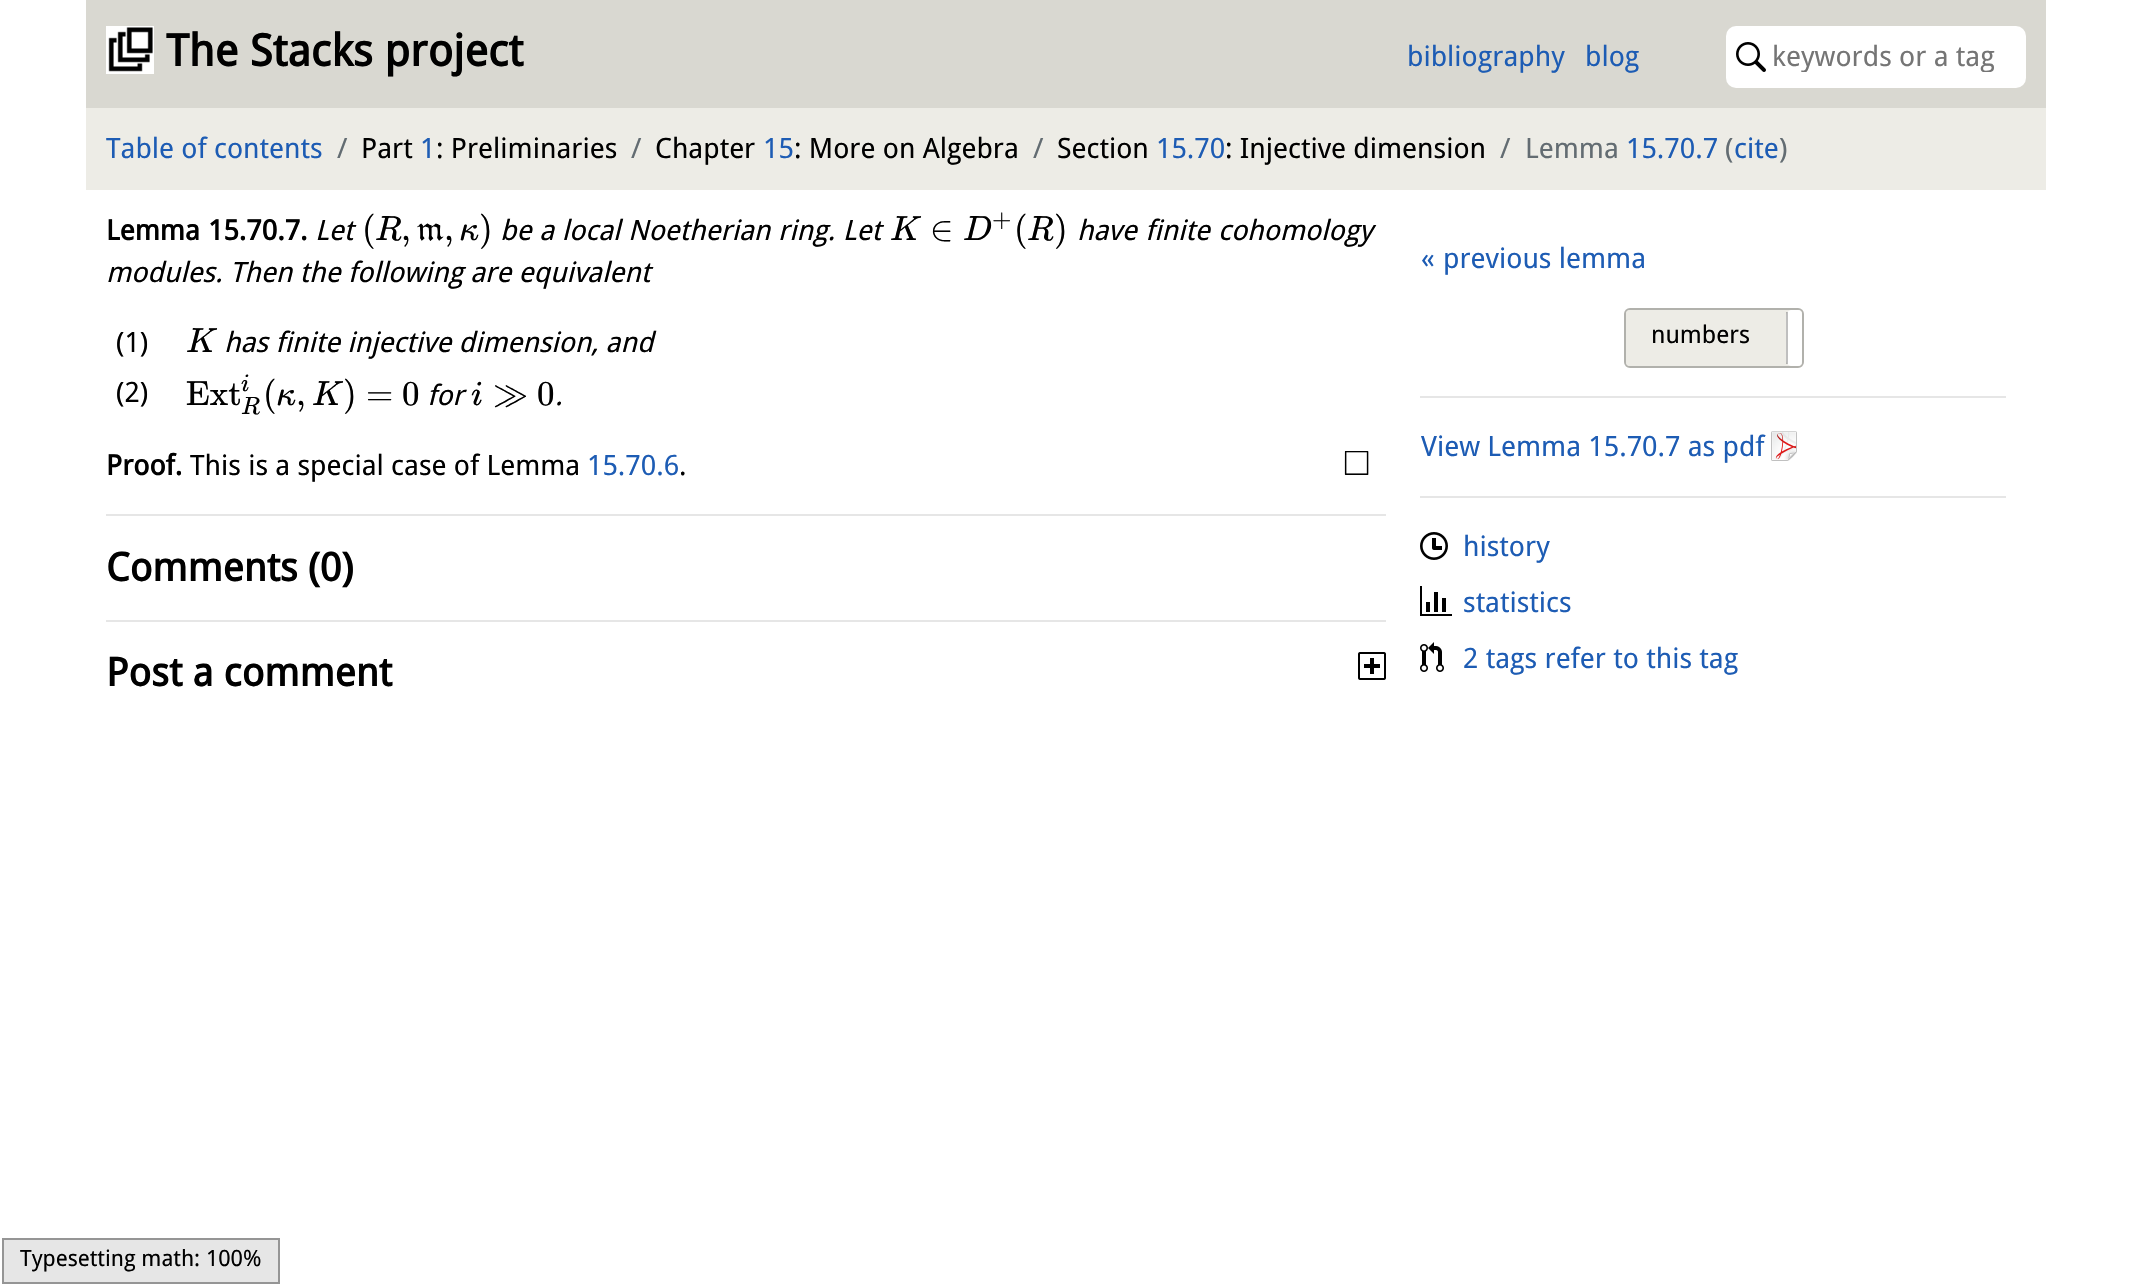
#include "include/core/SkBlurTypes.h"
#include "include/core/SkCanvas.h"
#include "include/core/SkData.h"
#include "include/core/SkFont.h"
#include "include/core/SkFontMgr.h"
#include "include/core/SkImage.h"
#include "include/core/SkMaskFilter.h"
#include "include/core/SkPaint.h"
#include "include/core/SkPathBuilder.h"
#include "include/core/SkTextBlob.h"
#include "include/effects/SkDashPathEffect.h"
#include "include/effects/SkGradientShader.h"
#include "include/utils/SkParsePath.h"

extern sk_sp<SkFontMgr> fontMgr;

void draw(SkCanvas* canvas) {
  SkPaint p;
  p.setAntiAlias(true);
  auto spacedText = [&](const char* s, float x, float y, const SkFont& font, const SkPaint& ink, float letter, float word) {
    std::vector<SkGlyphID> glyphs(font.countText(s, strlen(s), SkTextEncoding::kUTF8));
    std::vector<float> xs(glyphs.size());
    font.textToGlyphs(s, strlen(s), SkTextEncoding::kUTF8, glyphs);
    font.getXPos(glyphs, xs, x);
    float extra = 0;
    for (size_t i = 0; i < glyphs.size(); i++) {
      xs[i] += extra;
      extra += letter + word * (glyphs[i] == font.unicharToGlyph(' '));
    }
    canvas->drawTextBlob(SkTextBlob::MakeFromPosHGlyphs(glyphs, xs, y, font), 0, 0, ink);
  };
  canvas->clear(SK_ColorWHITE);
  p.setColor(SkColorSetRGB(217, 216, 209));
  canvas->drawRect(SkRect::MakeLTRB(86, 0, 2046, 108), p);
  canvas->drawImageRect(SkImages::DeferredFromEncodedData(SkData::MakeFromFileName("images/1.png")), SkRect::MakeLTRB(106, 26, 154, 74), SkSamplingOptions());
  p.setColor(SK_ColorWHITE);
  canvas->drawRoundRect(SkRect::MakeLTRB(1726, 26, 2026, 88), 10, 10, p);
  canvas->drawImageRect(SkImages::DeferredFromEncodedData(SkData::MakeFromFileName("images/2.png")), SkRect::MakeLTRB(1736, 42, 1766, 72), SkSamplingOptions());
  p.setColor(SkColorSetRGB(237, 236, 230));
  canvas->drawRect(SkRect::MakeLTRB(86, 108, 2046, 190), p);
  p.setColor(SkColorSetRGB(230, 230, 230));
  canvas->drawRect(SkRect::MakeLTRB(106, 514, 1386, 516), p);
  canvas->drawRect(SkRect::MakeLTRB(106, 620, 1386, 622), p);
  canvas->drawImageRect(SkImages::DeferredFromEncodedData(SkData::MakeFromFileName("images/3.png")), SkRect::MakeLTRB(1358, 652, 1386, 680), SkSamplingOptions());
  p.setColor(SkColorSetRGB(237, 236, 230));
  canvas->drawRoundRect(SkRect::MakeLTRB(1624, 308, 1804, 368), 6, 6, p);
  p.setStyle(SkPaint::kStroke_Style);
  p.setStrokeWidth(2);
  p.setColor(SkColorSetARGB(64, 0, 0, 0));
  canvas->drawRoundRect(SkRect::MakeLTRB(1625, 309, 1803, 367), 5, 5, p);
  p.setStyle(SkPaint::kFill_Style);
  p.setColor(SkColorSetRGB(237, 236, 230));
  canvas->drawRoundRect(SkRect::MakeLTRB(1626, 310, 1802, 366), 4, 4, p);
  p.setColor(SK_ColorWHITE);
  canvas->drawPath(SkPathBuilder().moveTo(1792, 310).lineTo(1798, 310).cubicTo(1800, 310, 1802, 312, 1802, 314).lineTo(1802, 362).cubicTo(1802, 364, 1800, 366, 1798, 366).lineTo(1792, 366).cubicTo(1788.5f, 366, 1786, 363.5f, 1786, 360).lineTo(1786, 316).cubicTo(1786, 312.5f, 1788.5f, 310, 1792, 310).close().detach(), p);
  p.setColor(SkColorSetARGB(64, 0, 0, 0));
  canvas->drawRect(SkRect::MakeLTRB(1786, 312, 1788, 364), p);
  p.setColor(SkColorSetRGB(230, 230, 230));
  canvas->drawRect(SkRect::MakeLTRB(1420, 396, 2006, 398), p);
  canvas->drawImageRect(SkImages::DeferredFromEncodedData(SkData::MakeFromFileName("images/4.png")), SkRect::MakeLTRB(1771, 431, 1797, 461), SkSamplingOptions());
  canvas->drawRect(SkRect::MakeLTRB(1420, 496, 2006, 498), p);
  canvas->drawImageRect(SkImages::DeferredFromEncodedData(SkData::MakeFromFileName("images/5.png")), SkRect::MakeLTRB(1420, 532, 1448, 560), SkSamplingOptions());
  canvas->drawImageRect(SkImages::DeferredFromEncodedData(SkData::MakeFromFileName("images/6.png")), SkRect::MakeLTRB(1420, 586, 1452, 616), SkSamplingOptions());
  canvas->drawImageRect(SkImages::DeferredFromEncodedData(SkData::MakeFromFileName("images/7.png")), SkRect::MakeLTRB(1420, 642, 1444, 672), SkSamplingOptions());
  canvas->drawRect(SkRect::MakeLTRB(3, 1239, 279, 1283), p);
  p.setStyle(SkPaint::kStroke_Style);
  p.setColor(SkColorSetRGB(149, 149, 149));
  canvas->drawRect(SkRect::MakeLTRB(3, 1239, 279, 1283), p);
  SkFont font1(fontMgr->matchFamilyStyle("Droid Sans", SkFontStyle::Bold()), 44);
  font1.setSubpixel(true);
  p.setStyle(SkPaint::kFill_Style);
  p.setColor(SK_ColorBLACK);
  canvas->drawString("The Stacks project", 166, 66, font1, p);
  SkFont font2(fontMgr->matchFamilyStyle("Droid Sans", SkFontStyle::Normal()), 28);
  font2.setSubpixel(true);
  p.setColor(SkColorSetRGB(29, 92, 180));
  canvas->drawString("bibliography", 1407, 66, font2, p);
  canvas->drawString("blog", 1585, 66, font2, p);
  canvas->save();
  canvas->clipRect(SkRect::MakeLTRB(1772, 40, 2014, 72));
  p.setColor(SkColorSetRGB(117, 117, 117));
  canvas->drawString("keywords or a tag", 1772, 66, font2, p);
  canvas->restore();
  p.setColor(SkColorSetRGB(29, 92, 180));
  canvas->drawString("Table of contents", 106, 158, font2, p);
  p.setColor(SkColorSetRGB(99, 108, 114));
  canvas->drawString("/", 337, 158, font2, p);
  p.setColor(SK_ColorBLACK);
  canvas->drawString("Part", 361, 158, font2, p);
  p.setColor(SkColorSetRGB(29, 92, 180));
  canvas->drawString("1", 420, 158, font2, p);
  p.setColor(SK_ColorBLACK);
  canvas->drawString(": Preliminaries", 436, 158, font2, p);
  p.setColor(SkColorSetRGB(99, 108, 114));
  canvas->drawString("/", 631, 158, font2, p);
  p.setColor(SK_ColorBLACK);
  canvas->drawString("Chapter", 655, 158, font2, p);
  p.setColor(SkColorSetRGB(29, 92, 180));
  canvas->drawString("15", 763, 158, font2, p);
  p.setColor(SK_ColorBLACK);
  canvas->drawString(": More on Algebra", 794, 158, font2, p);
  p.setColor(SkColorSetRGB(99, 108, 114));
  canvas->drawString("/", 1033, 158, font2, p);
  p.setColor(SK_ColorBLACK);
  canvas->drawString("Section", 1057, 158, font2, p);
  p.setColor(SkColorSetRGB(29, 92, 180));
  canvas->drawString("15.70", 1156, 158, font2, p);
  p.setColor(SK_ColorBLACK);
  canvas->drawString(": Injective dimension", 1225, 158, font2, p);
  p.setColor(SkColorSetRGB(99, 108, 114));
  canvas->drawString("/", 1500, 158, font2, p);
  canvas->drawString("Lemma", 1525, 158, font2, p);
  p.setColor(SkColorSetRGB(29, 92, 180));
  canvas->drawString("15.70.7", 1626, 158, font2, p);
  p.setColor(SkColorSetRGB(99, 108, 114));
  canvas->drawString("(", 1725, 158, font2, p);
  p.setColor(SkColorSetRGB(29, 92, 180));
  canvas->drawString("cite", 1734, 158, font2, p);
  p.setColor(SkColorSetRGB(99, 108, 114));
  canvas->drawString(")", 1779, 158, font2, p);
  SkFont font3(fontMgr->matchFamilyStyle("Droid Sans", SkFontStyle::Bold()), 28);
  font3.setSubpixel(true);
  p.setColor(SK_ColorBLACK);
  canvas->drawString("Lemma", 106, 240, font3, p);
  canvas->drawString("15.70.7.", 208, 240, font3, p);
  SkFont font4(fontMgr->matchFamilyStyle("Droid Sans", SkFontStyle::Italic()), 28);
  font4.setSubpixel(true);
  canvas->drawString("Let", 315, 240, font4, p);
  SkFont font5(fontMgr->matchFamilyStyle("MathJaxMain", SkFontStyle::Normal()), 35);
  font5.setSubpixel(true);
  canvas->drawString("(", 362, 240, font5, p);
  SkFont font6(fontMgr->matchFamilyStyle("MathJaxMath", SkFontStyle::Italic()), 35);
  font6.setSubpixel(true);
  canvas->drawString("R", 375, 240, font6, p);
  canvas->drawString(",", 401, 240, font5, p);
  SkFont font7(fontMgr->matchFamilyStyle("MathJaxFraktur", SkFontStyle::Normal()), 35);
  font7.setSubpixel(true);
  canvas->drawString("m", 417, 240, font7, p);
  canvas->drawString(",", 444, 240, font5, p);
  canvas->drawString("κ", 459, 240, font6, p);
  canvas->drawString(")", 479, 240, font5, p);
  spacedText("be a local Noetherian ring. Let", 500, 240, font4, p, 0, 0.5f);
  canvas->drawString("K", 890, 240, font6, p);
  canvas->drawString("∈", 930, 240, font5, p);
  canvas->drawString("D", 963, 240, font6, p);
  SkFont font8(fontMgr->matchFamilyStyle("MathJaxMain", SkFontStyle::Normal()), 25);
  font8.setSubpixel(true);
  canvas->drawString("+", 992, 227, font8, p);
  canvas->drawString("(", 1014, 240, font5, p);
  canvas->drawString("R", 1027, 240, font6, p);
  canvas->drawString(")", 1054, 240, font5, p);
  spacedText("have finite cohomology", 1077, 240, font4, p, 0, 1);
  canvas->drawString("modules. Then the following are equivalent", 106, 282, font4, p);
  canvas->drawString("(1)", 116, 352, font2, p);
  canvas->drawString("K", 186, 352, font6, p);
  canvas->drawString("has finite injective dimension, and", 224, 352, font4, p);
  canvas->drawString("(2)", 116, 402, font2, p);
  canvas->drawString("Ext", 186, 405, font5, p);
  SkFont font9(fontMgr->matchFamilyStyle("MathJaxMath", SkFontStyle::Italic()), 25);
  font9.setSubpixel(true);
  canvas->drawString("i", 241, 391, font9, p);
  canvas->drawString("R", 241, 414, font9, p);
  canvas->drawString("(", 263, 405, font5, p);
  canvas->drawString("κ", 276, 405, font6, p);
  canvas->drawString("K", 312, 405, font6, p);
  canvas->drawString(")", 343, 405, font5, p);
  canvas->drawString("=", 366, 405, font5, p);
  canvas->drawString("0", 402, 405, font5, p);
  canvas->drawString(",", 296, 405, font5, p);
  canvas->drawString("for", 427, 405, font4, p);
  canvas->drawString("i", 471, 405, font6, p);
  canvas->drawString("≫", 493, 405, font5, p);
  canvas->drawString("0", 537, 405, font5, p);
  canvas->drawString(".", 555, 405, font4, p);
  canvas->drawString("Proof.", 106, 475, font3, p);
  canvas->drawString("This is a special case of Lemma", 190, 475, font2, p);
  p.setColor(SkColorSetRGB(29, 92, 180));
  canvas->drawString("15.70.6", 587, 475, font2, p);
  p.setColor(SK_ColorBLACK);
  canvas->drawString(".", 679, 475, font2, p);
  SkFont font10(fontMgr->matchFamilyStyle("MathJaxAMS", SkFontStyle::Normal()), 35);
  font10.setSubpixel(true);
  canvas->drawString("□", 1343, 475, font10, p);
  SkFont font11(fontMgr->matchFamilyStyle("Droid Sans", SkFontStyle::Bold()), 39.25f);
  font11.setSubpixel(true);
  canvas->drawString("Comments (0)", 106, 581, font11, p);
  canvas->drawString("Post a comment", 106, 686, font11, p);
  p.setColor(SkColorSetRGB(29, 92, 180));
  canvas->drawString("«", 1421, 268, font2, p);
  canvas->drawString("previous lemma", 1443, 268, font2, p);
  SkFont font12(fontMgr->matchFamilyStyle("Droid Sans", SkFontStyle::Normal()), 24.5f);
  font12.setSubpixel(true);
  p.setColor(SK_ColorBLACK);
  canvas->drawString("numbers", 1651, 343, font12, p);
  p.setColor(SkColorSetRGB(29, 92, 180));
  canvas->drawString("View Lemma 15.70.7 as pdf", 1421, 456, font2, p);
  canvas->drawString("history", 1463, 556, font2, p);
  canvas->drawString("statistics", 1463, 612, font2, p);
  canvas->drawString("2 tags refer to this tag", 1463, 668, font2, p);
  SkFont font13(fontMgr->matchFamilyStyle("Droid Sans", SkFontStyle::Normal()), 22.4f);
  font13.setSubpixel(true);
  p.setColor(SK_ColorBLACK);
  canvas->drawString("Typesetting math: 100%", 20, 1266, font13, p);
}
